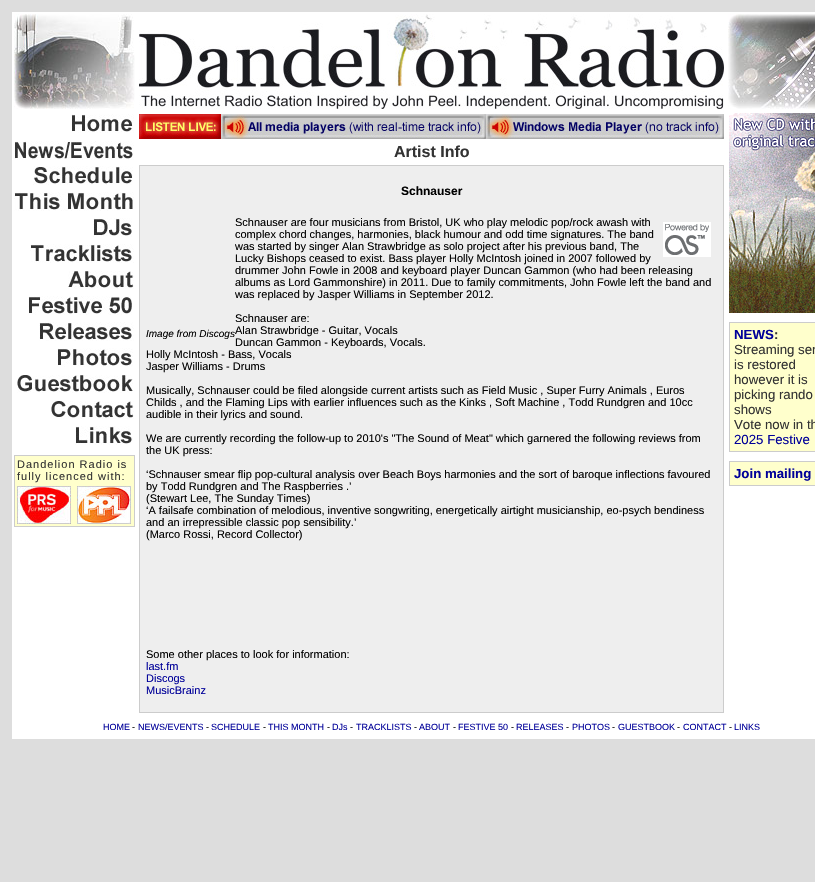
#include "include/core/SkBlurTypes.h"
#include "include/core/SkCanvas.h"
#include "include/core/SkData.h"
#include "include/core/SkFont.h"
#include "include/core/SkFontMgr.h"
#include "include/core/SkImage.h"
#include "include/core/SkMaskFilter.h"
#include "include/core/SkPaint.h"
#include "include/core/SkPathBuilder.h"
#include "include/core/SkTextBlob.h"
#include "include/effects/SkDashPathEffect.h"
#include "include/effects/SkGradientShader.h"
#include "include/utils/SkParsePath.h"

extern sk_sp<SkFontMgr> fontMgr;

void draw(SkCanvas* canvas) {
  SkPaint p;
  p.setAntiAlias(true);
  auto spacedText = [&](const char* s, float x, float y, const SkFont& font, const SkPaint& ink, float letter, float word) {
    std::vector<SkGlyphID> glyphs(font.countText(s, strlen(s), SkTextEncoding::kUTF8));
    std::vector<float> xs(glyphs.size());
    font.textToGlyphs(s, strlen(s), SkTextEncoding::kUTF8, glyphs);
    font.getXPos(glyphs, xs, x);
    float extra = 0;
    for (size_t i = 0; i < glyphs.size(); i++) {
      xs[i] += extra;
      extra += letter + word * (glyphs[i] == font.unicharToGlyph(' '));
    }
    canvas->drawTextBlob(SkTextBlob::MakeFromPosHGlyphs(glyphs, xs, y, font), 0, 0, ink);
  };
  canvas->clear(SkColorSetRGB(221, 221, 221));
  p.setColor(SK_ColorWHITE);
  canvas->drawRect(SkRect::MakeLTRB(12, 12, 815, 111), p);
  canvas->drawImageRect(SkImages::DeferredFromEncodedData(SkData::MakeFromFileName("images/1.png")), SkRect::MakeLTRB(14, 14, 135, 109), SkSamplingOptions());
  canvas->drawImageRect(SkImages::DeferredFromEncodedData(SkData::MakeFromFileName("images/2.png")), SkRect::MakeLTRB(139, 14, 724, 109), SkSamplingOptions());
  canvas->drawImageRect(SkImages::DeferredFromEncodedData(SkData::MakeFromFileName("images/3.png")), SkRect::MakeLTRB(728, 14, 815, 109), SkSamplingOptions());
  canvas->drawRect(SkRect::MakeLTRB(137, 111, 726, 715), p);
  p.setColor(SkColorSetRGB(238, 238, 238));
  canvas->drawRect(SkRect::MakeLTRB(139.5f, 165.5f, 723.5f, 712.5f), p);
  p.setStyle(SkPaint::kStroke_Style);
  p.setStrokeWidth(1);
  p.setColor(SkColorSetRGB(204, 204, 204));
  canvas->drawRect(SkRect::MakeLTRB(139.5f, 165.5f, 723.5f, 712.5f), p);
  canvas->drawImageRect(SkImages::DeferredFromEncodedData(SkData::MakeFromFileName("images/4.png")), SkRect::MakeLTRB(663, 222, 711, 257), SkSamplingOptions());
  p.setStyle(SkPaint::kFill_Style);
  p.setColor(SK_ColorWHITE);
  canvas->drawRect(SkRect::MakeLTRB(12, 111, 137, 715), p);
  canvas->drawImageRect(SkImages::DeferredFromEncodedData(SkData::MakeFromFileName("images/5.png")), SkRect::MakeLTRB(71, 114, 134, 133), SkSamplingOptions());
  canvas->drawImageRect(SkImages::DeferredFromEncodedData(SkData::MakeFromFileName("images/6.png")), SkRect::MakeLTRB(14, 141, 134, 160), SkSamplingOptions());
  canvas->drawImageRect(SkImages::DeferredFromEncodedData(SkData::MakeFromFileName("images/7.png")), SkRect::MakeLTRB(33, 166, 133, 185), SkSamplingOptions());
  canvas->drawImageRect(SkImages::DeferredFromEncodedData(SkData::MakeFromFileName("images/8.png")), SkRect::MakeLTRB(14, 192, 134, 211), SkSamplingOptions());
  canvas->drawImageRect(SkImages::DeferredFromEncodedData(SkData::MakeFromFileName("images/9.png")), SkRect::MakeLTRB(93, 218, 132, 237), SkSamplingOptions());
  canvas->drawImageRect(SkImages::DeferredFromEncodedData(SkData::MakeFromFileName("images/10.png")), SkRect::MakeLTRB(30, 244, 134, 263), SkSamplingOptions());
  canvas->drawImageRect(SkImages::DeferredFromEncodedData(SkData::MakeFromFileName("images/11.png")), SkRect::MakeLTRB(68, 271, 134, 289), SkSamplingOptions());
  canvas->drawImageRect(SkImages::DeferredFromEncodedData(SkData::MakeFromFileName("images/12.png")), SkRect::MakeLTRB(28, 296, 132, 315), SkSamplingOptions());
  canvas->drawImageRect(SkImages::DeferredFromEncodedData(SkData::MakeFromFileName("images/13.png")), SkRect::MakeLTRB(39, 322, 134, 341), SkSamplingOptions());
  canvas->drawImageRect(SkImages::DeferredFromEncodedData(SkData::MakeFromFileName("images/14.png")), SkRect::MakeLTRB(57, 348, 133, 367), SkSamplingOptions());
  canvas->drawImageRect(SkImages::DeferredFromEncodedData(SkData::MakeFromFileName("images/15.png")), SkRect::MakeLTRB(17, 375, 133, 393), SkSamplingOptions());
  canvas->drawImageRect(SkImages::DeferredFromEncodedData(SkData::MakeFromFileName("images/16.png")), SkRect::MakeLTRB(51, 401, 134, 419), SkSamplingOptions());
  canvas->drawImageRect(SkImages::DeferredFromEncodedData(SkData::MakeFromFileName("images/17.png")), SkRect::MakeLTRB(75, 426, 133, 445), SkSamplingOptions());
  p.setColor(SkColorSetRGB(255, 255, 204));
  canvas->drawRect(SkRect::MakeLTRB(14.5f, 455.5f, 134.5f, 526.5f), p);
  p.setStyle(SkPaint::kStroke_Style);
  p.setColor(SkColorSetRGB(204, 204, 204));
  canvas->drawRect(SkRect::MakeLTRB(14.5f, 455.5f, 134.5f, 526.5f), p);
  canvas->drawImageRect(SkImages::DeferredFromEncodedData(SkData::MakeFromFileName("images/18.png")), SkRect::MakeLTRB(17, 486, 71, 524), SkSamplingOptions());
  canvas->drawImageRect(SkImages::DeferredFromEncodedData(SkData::MakeFromFileName("images/19.png")), SkRect::MakeLTRB(77, 486, 131, 524), SkSamplingOptions());
  canvas->drawImageRect(SkImages::DeferredFromEncodedData(SkData::MakeFromFileName("images/20.png")), SkRect::MakeLTRB(139, 114, 221, 139), SkSamplingOptions());
  canvas->drawImageRect(SkImages::DeferredFromEncodedData(SkData::MakeFromFileName("images/21.png")), SkRect::MakeLTRB(221, 114, 486, 139), SkSamplingOptions());
  canvas->drawImageRect(SkImages::DeferredFromEncodedData(SkData::MakeFromFileName("images/22.png")), SkRect::MakeLTRB(486, 114, 724, 139), SkSamplingOptions());
  p.setStyle(SkPaint::kFill_Style);
  p.setColor(SK_ColorWHITE);
  canvas->drawRect(SkRect::MakeLTRB(726, 111, 815, 715), p);
  canvas->drawImageRect(SkImages::DeferredFromEncodedData(SkData::MakeFromFileName("images/23.png")), SkRect::MakeLTRB(729, 113, 815, 313), SkSamplingOptions());
  p.setColor(SkColorSetRGB(255, 255, 204));
  canvas->drawRect(SkRect::MakeLTRB(729.5f, 322.5f, 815.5f, 451.5f), p);
  p.setStyle(SkPaint::kStroke_Style);
  p.setColor(SkColorSetRGB(204, 204, 204));
  canvas->drawRect(SkRect::MakeLTRB(729.5f, 322.5f, 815.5f, 451.5f), p);
  p.setStyle(SkPaint::kFill_Style);
  p.setColor(SkColorSetRGB(255, 255, 204));
  canvas->drawRect(SkRect::MakeLTRB(729.5f, 461.5f, 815.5f, 485.5f), p);
  p.setStyle(SkPaint::kStroke_Style);
  p.setColor(SkColorSetRGB(204, 204, 204));
  canvas->drawRect(SkRect::MakeLTRB(729.5f, 461.5f, 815.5f, 485.5f), p);
  p.setStyle(SkPaint::kFill_Style);
  p.setColor(SK_ColorWHITE);
  canvas->drawRect(SkRect::MakeLTRB(12, 715, 815, 739), p);
  SkFont font1(fontMgr->matchFamilyStyle("Liberation Sans", SkFontStyle::Bold()), 16);
  font1.setSubpixel(true);
  p.setColor(SkColorSetRGB(51, 51, 51));
  canvas->drawString("Artist Info", 394, 157, font1, p);
  SkFont font2(fontMgr->matchFamilyStyle("Liberation Sans", SkFontStyle::Bold()), 12);
  font2.setSubpixel(true);
  p.setColor(SK_ColorBLACK);
  canvas->drawString("Schnauser", 401, 195, font2, p);
  SkFont font3(fontMgr->matchFamilyStyle("Liberation Sans", SkFontStyle::Normal()), 11);
  font3.setSubpixel(true);
  canvas->drawString("Schnauser are four musicians from Bristol, UK who play melodic pop/rock awash with", 235, 226, font3, p);
  canvas->drawString("complex chord changes, harmonies, black humour and odd time signatures. The band", 235, 238, font3, p);
  canvas->drawString("was started by singer Alan Strawbridge as solo project after his previous band, The", 235, 250, font3, p);
  canvas->drawString("Lucky Bishops ceased to exist. Bass player Holly McIntosh joined in 2007 followed by", 235, 262, font3, p);
  canvas->drawString("drummer John Fowle in 2008 and keyboard player Duncan Gammon (who had been releasing", 235, 274, font3, p);
  canvas->drawString("albums as Lord Gammonshire) in 2011. Due to family commitments, John Fowle left the band and", 235, 286, font3, p);
  canvas->drawString("was replaced by Jasper Williams in September 2012.", 235, 298, font3, p);
  canvas->drawString("Schnauser are:", 235, 322, font3, p);
  SkFont font4(fontMgr->matchFamilyStyle("Liberation Sans", SkFontStyle::Italic()), 10);
  font4.setSubpixel(true);
  canvas->drawString("Image from Discogs", 146, 337, font4, p);
  canvas->drawString("Alan Strawbridge - Guitar, Vocals", 235, 334, font3, p);
  canvas->drawString("Duncan Gammon - Keyboards, Vocals.", 235, 346, font3, p);
  canvas->drawString("Holly McIntosh - Bass, Vocals", 146, 358, font3, p);
  canvas->drawString("Jasper Williams - Drums", 146, 370, font3, p);
  canvas->drawString("Musically, Schnauser could be filed alongside current artists such as Field Music , Super Furry Animals , Euros", 146, 394, font3, p);
  canvas->drawString("Childs , and the Flaming Lips with earlier influences such as the Kinks , Soft Machine , Todd Rundgren and 10cc", 146, 406, font3, p);
  canvas->drawString("audible in their lyrics and sound.", 146, 418, font3, p);
  canvas->drawString("We are currently recording the follow-up to 2010's \"The Sound of Meat\" which garnered the following reviews from", 146, 442, font3, p);
  canvas->drawString("the UK press:", 146, 454, font3, p);
  canvas->drawString("‘Schnauser smear flip pop-cultural analysis over Beach Boys harmonies and the sort of baroque inflections favoured", 146, 478, font3, p);
  canvas->drawString("by Todd Rundgren and The Raspberries .’", 146, 490, font3, p);
  canvas->drawString("(Stewart Lee, The Sunday Times)", 146, 502, font3, p);
  canvas->drawString("‘A failsafe combination of melodious, inventive songwriting, energetically airtight musicianship, eo-psych bendiness", 146, 514, font3, p);
  canvas->drawString("and an irrepressible classic pop sensibility.’", 146, 526, font3, p);
  canvas->drawString("(Marco Rossi, Record Collector)", 146, 538, font3, p);
  canvas->drawString("Some other places to look for information:", 146, 658, font3, p);
  p.setColor(SkColorSetRGB(0, 0, 153));
  canvas->drawString("last.fm", 146, 670, font3, p);
  canvas->drawString("Discogs", 146, 682, font3, p);
  canvas->drawString("MusicBrainz", 146, 694, font3, p);
  p.setColor(SkColorSetRGB(51, 51, 51));
  spacedText("Dandelion Radio is", 17, 468, font3, p, 1, 0);
  spacedText("fully licenced with:", 17, 480, font3, p, 1, 0);
  SkFont font5(fontMgr->matchFamilyStyle("Liberation Sans", SkFontStyle::Bold()), 13.25f);
  font5.setSubpixel(true);
  p.setColor(SkColorSetRGB(0, 0, 153));
  canvas->drawString("NEWS", 734, 339, font5, p);
  p.setColor(SkColorSetRGB(51, 51, 51));
  canvas->drawString(":", 774, 339, font5, p);
  SkFont font6(fontMgr->matchFamilyStyle("Liberation Sans", SkFontStyle::Normal()), 13.25f);
  font6.setSubpixel(true);
  canvas->drawString("Streaming ser", 734, 354, font6, p);
  canvas->drawString("is restored", 734, 369, font6, p);
  canvas->drawString("however it is", 734, 384, font6, p);
  canvas->drawString("picking rando", 734, 399, font6, p);
  canvas->drawString("shows", 734, 414, font6, p);
  canvas->drawString("Vote now in th", 734, 429, font6, p);
  p.setColor(SkColorSetRGB(0, 0, 153));
  canvas->drawString("2025 Festive", 734, 444, font6, p);
  canvas->drawString("Join mailing", 734, 478, font5, p);
  SkFont font7(fontMgr->matchFamilyStyle("Liberation Sans", SkFontStyle::Normal()), 9);
  font7.setSubpixel(true);
  canvas->drawString("HOME", 103, 730, font7, p);
  p.setColor(SK_ColorBLACK);
  canvas->drawString("-", 132, 730, font7, p);
  p.setColor(SkColorSetRGB(0, 0, 153));
  canvas->drawString("NEWS/EVENTS", 138, 730, font7, p);
  p.setColor(SK_ColorBLACK);
  canvas->drawString("-", 206, 730, font7, p);
  p.setColor(SkColorSetRGB(0, 0, 153));
  canvas->drawString("SCHEDULE", 211, 730, font7, p);
  p.setColor(SK_ColorBLACK);
  canvas->drawString("-", 263, 730, font7, p);
  p.setColor(SkColorSetRGB(0, 0, 153));
  canvas->drawString("THIS MONTH", 268, 730, font7, p);
  p.setColor(SK_ColorBLACK);
  canvas->drawString("-", 327, 730, font7, p);
  p.setColor(SkColorSetRGB(0, 0, 153));
  canvas->drawString("DJs", 332, 730, font7, p);
  p.setColor(SK_ColorBLACK);
  canvas->drawString("-", 350, 730, font7, p);
  p.setColor(SkColorSetRGB(0, 0, 153));
  canvas->drawString("TRACKLISTS", 356, 730, font7, p);
  p.setColor(SK_ColorBLACK);
  canvas->drawString("-", 414, 730, font7, p);
  p.setColor(SkColorSetRGB(0, 0, 153));
  canvas->drawString("ABOUT", 419, 730, font7, p);
  p.setColor(SK_ColorBLACK);
  canvas->drawString("-", 453, 730, font7, p);
  p.setColor(SkColorSetRGB(0, 0, 153));
  canvas->drawString("FESTIVE 50", 458, 730, font7, p);
  p.setColor(SK_ColorBLACK);
  canvas->drawString("-", 511, 730, font7, p);
  p.setColor(SkColorSetRGB(0, 0, 153));
  canvas->drawString("RELEASES", 516, 730, font7, p);
  p.setColor(SK_ColorBLACK);
  canvas->drawString("-", 566, 730, font7, p);
  p.setColor(SkColorSetRGB(0, 0, 153));
  canvas->drawString("PHOTOS", 572, 730, font7, p);
  p.setColor(SK_ColorBLACK);
  canvas->drawString("-", 612, 730, font7, p);
  p.setColor(SkColorSetRGB(0, 0, 153));
  canvas->drawString("GUESTBOOK", 618, 730, font7, p);
  p.setColor(SK_ColorBLACK);
  canvas->drawString("-", 677, 730, font7, p);
  p.setColor(SkColorSetRGB(0, 0, 153));
  canvas->drawString("CONTACT", 683, 730, font7, p);
  p.setColor(SK_ColorBLACK);
  canvas->drawString("-", 729, 730, font7, p);
  p.setColor(SkColorSetRGB(0, 0, 153));
  canvas->drawString("LINKS", 734, 730, font7, p);
}
